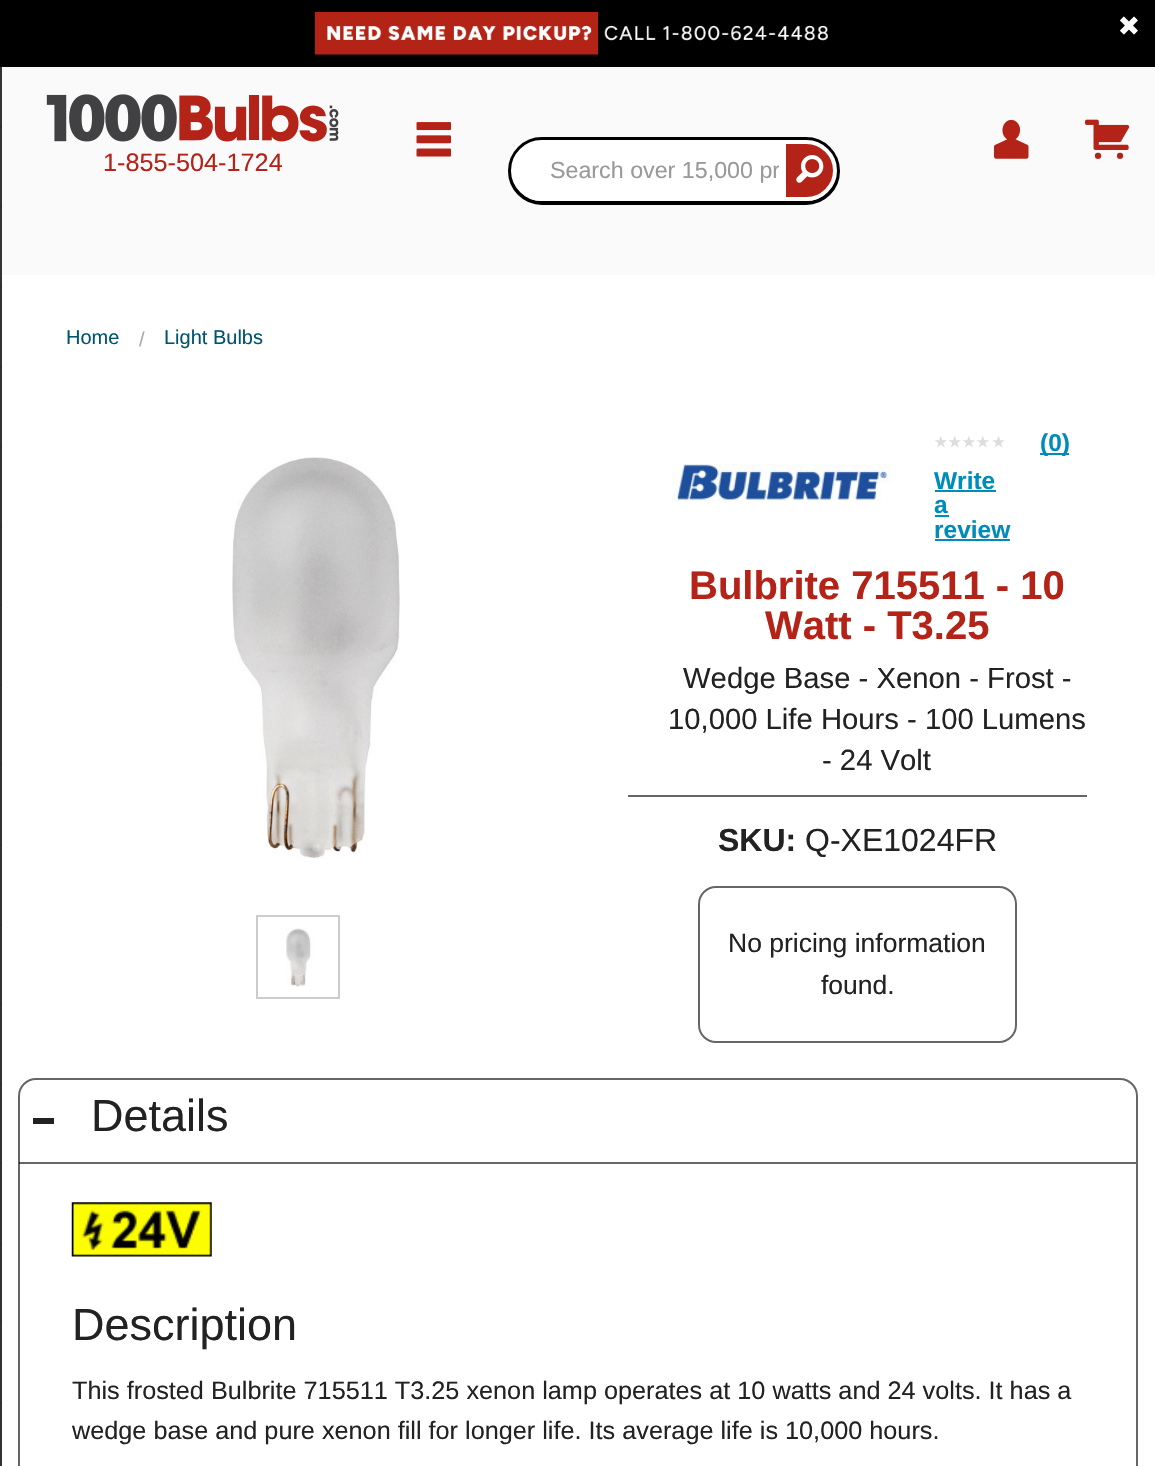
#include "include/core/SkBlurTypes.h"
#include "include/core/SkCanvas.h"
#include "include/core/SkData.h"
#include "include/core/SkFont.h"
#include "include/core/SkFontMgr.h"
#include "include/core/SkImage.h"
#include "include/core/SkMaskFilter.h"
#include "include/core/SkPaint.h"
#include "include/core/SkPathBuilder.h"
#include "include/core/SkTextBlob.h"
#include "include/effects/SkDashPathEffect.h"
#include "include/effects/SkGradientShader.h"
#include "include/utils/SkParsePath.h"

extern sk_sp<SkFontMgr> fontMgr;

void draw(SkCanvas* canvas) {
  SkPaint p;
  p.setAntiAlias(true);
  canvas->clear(SK_ColorWHITE);
  p.setColor(SK_ColorBLACK);
  canvas->drawRect(SkRect::MakeLTRB(0, 0, 1155, 67), p);
  canvas->drawImageRect(SkImages::DeferredFromEncodedData(SkData::MakeFromFileName("images/1.png")), SkRect::MakeLTRB(314, 12, 828, 55), SkSamplingOptions());
  canvas->drawImageRect(SkImages::DeferredFromEncodedData(SkData::MakeFromFileName("images/2.png")), SkRect::MakeLTRB(1120, 16, 1138, 35), SkSamplingOptions());
  p.setColor(SkColorSetRGB(51, 51, 51));
  canvas->drawRect(SkRect::MakeLTRB(0, 67, 2, 1466), p);
  p.setColor(SkColorSetRGB(46, 46, 46));
  canvas->drawRect(SkRect::MakeLTRB(0, 126, 2, 128), p);
  canvas->drawRect(SkRect::MakeLTRB(0, 205, 2, 207), p);
  canvas->drawRect(SkRect::MakeLTRB(0, 285, 2, 287), p);
  canvas->drawRect(SkRect::MakeLTRB(0, 366, 2, 368), p);
  canvas->drawRect(SkRect::MakeLTRB(0, 445, 2, 447), p);
  canvas->drawRect(SkRect::MakeLTRB(0, 525, 2, 527), p);
  canvas->drawRect(SkRect::MakeLTRB(0, 604, 2, 606), p);
  canvas->drawRect(SkRect::MakeLTRB(0, 684, 2, 686), p);
  canvas->drawRect(SkRect::MakeLTRB(0, 763, 2, 765), p);
  canvas->drawRect(SkRect::MakeLTRB(0, 844, 2, 846), p);
  canvas->drawRect(SkRect::MakeLTRB(0, 924, 2, 926), p);
  canvas->drawRect(SkRect::MakeLTRB(0, 1003, 2, 1005), p);
  canvas->drawRect(SkRect::MakeLTRB(0, 1083, 2, 1085), p);
  canvas->drawRect(SkRect::MakeLTRB(0, 1162, 2, 1164), p);
  canvas->drawRect(SkRect::MakeLTRB(0, 1243, 2, 1245), p);
  canvas->drawRect(SkRect::MakeLTRB(0, 1321, 2, 1323), p);
  canvas->drawRect(SkRect::MakeLTRB(0, 1402, 2, 1404), p);
  p.setColor(SkColorSetRGB(250, 250, 250));
  canvas->drawRect(SkRect::MakeLTRB(2, 67, 1155, 275), p);
  canvas->drawImageRect(SkImages::DeferredFromEncodedData(SkData::MakeFromFileName("images/3.png")), SkRect::MakeLTRB(416, 122, 451, 157), SkSamplingOptions());
  canvas->drawImageRect(SkImages::DeferredFromEncodedData(SkData::MakeFromFileName("images/4.png")), SkRect::MakeLTRB(994, 119, 1029, 159), SkSamplingOptions());
  canvas->drawImageRect(SkImages::DeferredFromEncodedData(SkData::MakeFromFileName("images/5.png")), SkRect::MakeLTRB(1085, 119, 1130, 159), SkSamplingOptions());
  canvas->drawImageRect(SkImages::DeferredFromEncodedData(SkData::MakeFromFileName("images/6.png")), SkRect::MakeLTRB(46, 94, 339, 142), SkSamplingOptions());
  p.setStyle(SkPaint::kStroke_Style);
  p.setStrokeWidth(4);
  p.setColor(SK_ColorBLACK);
  canvas->drawRoundRect(SkRect::MakeLTRB(510, 139, 838, 203), 32, 32, p);
  p.setStyle(SkPaint::kFill_Style);
  p.setColor(SK_ColorWHITE);
  canvas->drawPath(SkPathBuilder().moveTo(541.5f, 142).lineTo(780, 142).lineTo(780, 199).lineTo(541.5f, 199).cubicTo(526, 199, 513, 186, 513, 170.5f).cubicTo(513, 155, 526, 142, 541.5f, 142).close().detach(), p);
  p.setStyle(SkPaint::kStroke_Style);
  canvas->drawPath(SkPathBuilder().moveTo(541.5f, 142).lineTo(780, 142).lineTo(780, 199).lineTo(541.5f, 199).cubicTo(526, 199, 513, 186, 513, 170.5f).cubicTo(513, 155, 526, 142, 541.5f, 142).close().detach(), p);
  p.setStyle(SkPaint::kFill_Style);
  p.setColor(SkColorSetRGB(179, 35, 23));
  canvas->drawPath(SkPathBuilder().moveTo(784, 142).lineTo(806.5f, 142).cubicTo(822, 142, 835, 155, 835, 170.5f).cubicTo(835, 186, 822, 199, 806.5f, 199).lineTo(784, 199).close().detach(), p);
  p.setStyle(SkPaint::kStroke_Style);
  p.setColor(SK_ColorWHITE);
  canvas->drawPath(SkPathBuilder().moveTo(784, 142).lineTo(806.5f, 142).cubicTo(822, 142, 835, 155, 835, 170.5f).cubicTo(835, 186, 822, 199, 806.5f, 199).lineTo(784, 199).close().detach(), p);
  canvas->drawImageRect(SkImages::DeferredFromEncodedData(SkData::MakeFromFileName("images/7.png")), SkRect::MakeLTRB(796, 155, 824, 183), SkSamplingOptions());
  canvas->drawImageRect(SkImages::DeferredFromEncodedData(SkData::MakeFromFileName("images/8.png")), SkRect::MakeLTRB(232, 457, 400, 859), SkSamplingOptions());
  p.setStrokeWidth(2);
  p.setColor(SkColorSetRGB(204, 204, 204));
  canvas->drawRect(SkRect::MakeLTRB(257, 916, 339, 998), p);
  canvas->drawImageRect(SkImages::DeferredFromEncodedData(SkData::MakeFromFileName("images/9.png")), SkRect::MakeLTRB(286, 928, 314, 987), SkSamplingOptions());
  canvas->drawImageRect(SkImages::DeferredFromEncodedData(SkData::MakeFromFileName("images/10.png")), SkRect::MakeLTRB(672, 463, 890, 501), SkSamplingOptions());
  canvas->drawImageRect(SkImages::DeferredFromEncodedData(SkData::MakeFromFileName("images/11.png")), SkRect::MakeLTRB(935, 436, 947, 448), SkSamplingOptions());
  canvas->drawImageRect(SkImages::DeferredFromEncodedData(SkData::MakeFromFileName("images/12.png")), SkRect::MakeLTRB(948, 436, 961, 448), SkSamplingOptions());
  canvas->drawImageRect(SkImages::DeferredFromEncodedData(SkData::MakeFromFileName("images/12.png")), SkRect::MakeLTRB(962, 436, 975, 448), SkSamplingOptions());
  canvas->drawImageRect(SkImages::DeferredFromEncodedData(SkData::MakeFromFileName("images/12.png")), SkRect::MakeLTRB(976, 436, 989, 448), SkSamplingOptions());
  canvas->drawImageRect(SkImages::DeferredFromEncodedData(SkData::MakeFromFileName("images/13.png")), SkRect::MakeLTRB(992, 436, 1005, 448), SkSamplingOptions());
  p.setStyle(SkPaint::kFill_Style);
  p.setColor(SkColorSetRGB(0, 140, 186));
  canvas->drawRect(SkRect::MakeLTRB(1040, 453, 1069, 455), p);
  canvas->drawRect(SkRect::MakeLTRB(935, 490, 996, 492), p);
  canvas->drawRect(SkRect::MakeLTRB(935, 515, 949, 517), p);
  canvas->drawRect(SkRect::MakeLTRB(935, 539, 1010, 541), p);
  p.setColor(SkColorSetRGB(102, 102, 102));
  canvas->drawRect(SkRect::MakeLTRB(628, 795, 1087, 797), p);
  p.setStyle(SkPaint::kStroke_Style);
  canvas->drawRoundRect(SkRect::MakeLTRB(699, 887, 1016, 1042), 17, 17, p);
  canvas->drawRoundRect(SkRect::MakeLTRB(19, 1079, 1137, 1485), 17, 17, p);
  p.setStyle(SkPaint::kFill_Style);
  p.setColor(SkColorSetRGB(34, 34, 34));
  canvas->drawRect(SkRect::MakeLTRB(33, 1118, 54, 1124), p);
  p.setColor(SkColorSetARGB(153, 0, 0, 0));
  canvas->drawRect(SkRect::MakeLTRB(19, 1162, 1136, 1164), p);
  canvas->drawImageRect(SkImages::DeferredFromEncodedData(SkData::MakeFromFileName("images/14.png")), SkRect::MakeLTRB(71, 1202, 212, 1257), SkSamplingOptions());
  SkFont font1(fontMgr->matchFamilyStyle("Liberation Sans", SkFontStyle::Normal()), 25.25f);
  font1.setSubpixel(true);
  p.setColor(SkColorSetRGB(179, 35, 23));
  canvas->drawString("1-855-504-1724", 103, 171, font1, p);
  canvas->save();
  canvas->clipPath(SkPathBuilder().moveTo(542, 144).lineTo(779, 144).lineTo(779, 198).lineTo(542, 198).cubicTo(527, 198, 515, 186, 515, 171).cubicTo(515, 156, 527, 144, 542, 144).close().detach(), true);
  SkFont font2(fontMgr->matchFamilyStyle("Liberation Sans", SkFontStyle::Normal()), 23.25f);
  font2.setSubpixel(true);
  p.setColor(SkColorSetRGB(153, 153, 153));
  canvas->drawString("Search over 15,000 pr", 550, 178, font2, p);
  canvas->restore();
  SkFont font3(fontMgr->matchFamilyStyle("Liberation Sans", SkFontStyle::Normal()), 20);
  font3.setSubpixel(true);
  p.setColor(SkColorSetRGB(0, 84, 111));
  canvas->drawString("Home", 66, 344, font3, p);
  p.setColor(SkColorSetRGB(170, 170, 170));
  canvas->drawString("/", 139, 346, font3, p);
  p.setColor(SkColorSetRGB(0, 84, 111));
  canvas->drawString("Light Bulbs", 164, 344, font3, p);
  SkFont font4(fontMgr->matchFamilyStyle("Liberation Sans", SkFontStyle::Bold()), 24.5f);
  font4.setSubpixel(true);
  p.setColor(SkColorSetRGB(0, 140, 186));
  canvas->drawString("(0)", 1040, 451, font4, p);
  canvas->drawString("Write", 934, 489, font4, p);
  canvas->drawString("a", 934, 513, font4, p);
  canvas->drawString("review", 934, 538, font4, p);
  SkFont font5(fontMgr->matchFamilyStyle("Liberation Sans", SkFontStyle::Bold()), 40);
  font5.setSubpixel(true);
  p.setColor(SkColorSetRGB(179, 35, 23));
  canvas->drawString("Bulbrite 715511 - 10", 689, 599, font5, p);
  canvas->drawString("Watt - T3.25", 765, 639, font5, p);
  SkFont font6(fontMgr->matchFamilyStyle("Liberation Sans", SkFontStyle::Normal()), 29.25f);
  font6.setSubpixel(true);
  p.setColor(SkColorSetRGB(34, 34, 34));
  canvas->drawString("Wedge Base - Xenon - Frost -", 683, 688, font6, p);
  canvas->drawString("10,000 Life Hours - 100 Lumens", 668, 729, font6, p);
  canvas->drawString("- 24 Volt", 822, 770, font6, p);
  SkFont font7(fontMgr->matchFamilyStyle("Liberation Sans", SkFontStyle::Bold()), 32);
  font7.setSubpixel(true);
  canvas->drawString("SKU:", 718, 851, font7, p);
  SkFont font8(fontMgr->matchFamilyStyle("Liberation Sans", SkFontStyle::Normal()), 32);
  font8.setSubpixel(true);
  canvas->drawString("Q-XE1024FR", 805, 851, font8, p);
  SkFont font9(fontMgr->matchFamilyStyle("Liberation Sans", SkFontStyle::Normal()), 26.5f);
  font9.setSubpixel(true);
  canvas->drawString("No pricing information", 728, 952, font9, p);
  canvas->drawString("found.", 821, 994, font9, p);
  SkFont font10(fontMgr->matchFamilyStyle("Liberation Sans", SkFontStyle::Normal()), 45);
  font10.setSubpixel(true);
  canvas->drawString("Details", 91, 1131, font10, p);
  canvas->drawString("Description", 72, 1340, font10, p);
  canvas->drawString("This frosted Bulbrite 715511 T3.25 xenon lamp operates at 10 watts and 24 volts. It has a", 72, 1399, font1, p);
  canvas->drawString("wedge base and pure xenon fill for longer life. Its average life is 10,000 hours.", 72, 1439, font1, p);
}
